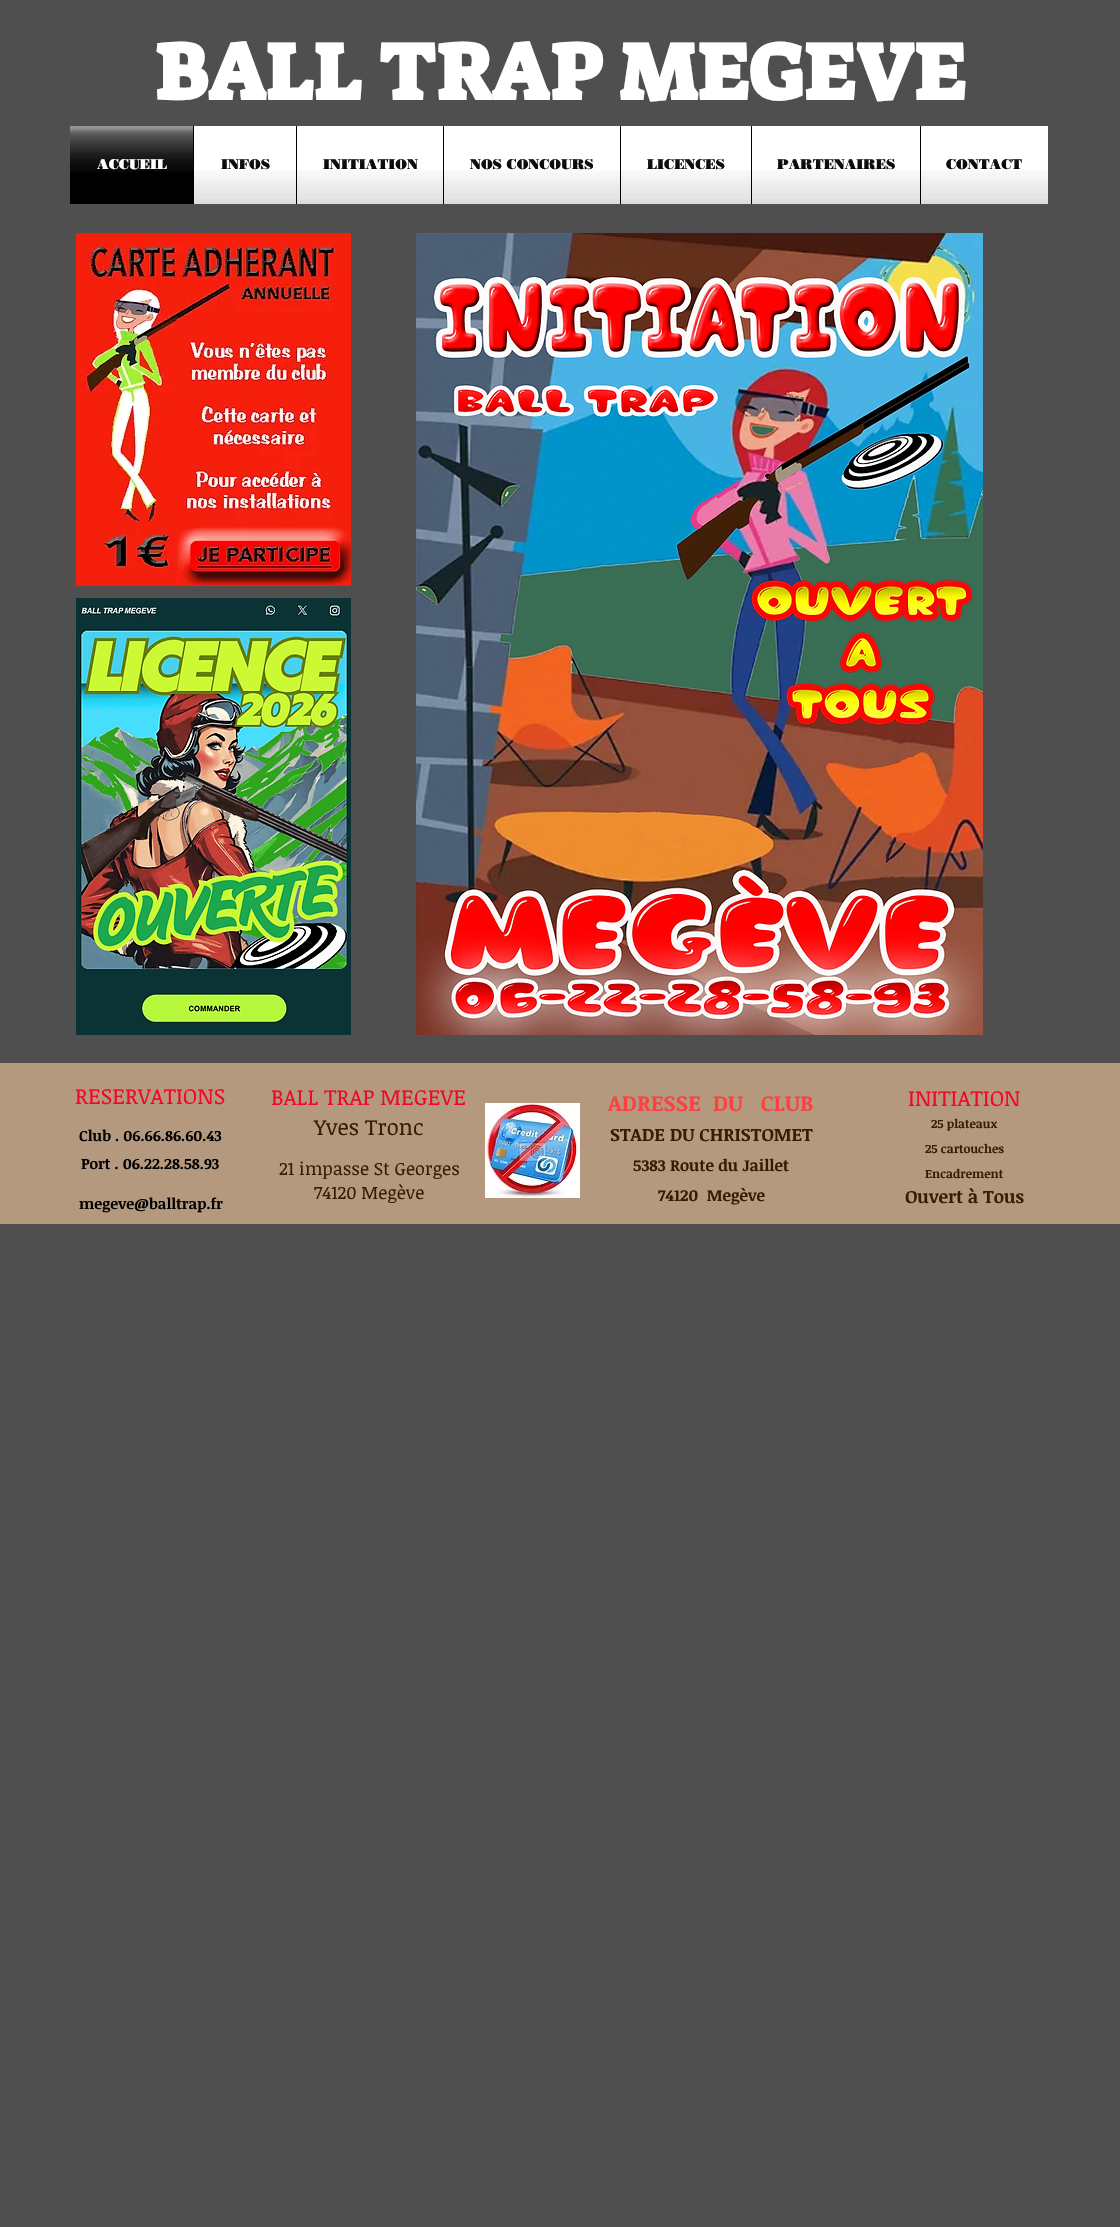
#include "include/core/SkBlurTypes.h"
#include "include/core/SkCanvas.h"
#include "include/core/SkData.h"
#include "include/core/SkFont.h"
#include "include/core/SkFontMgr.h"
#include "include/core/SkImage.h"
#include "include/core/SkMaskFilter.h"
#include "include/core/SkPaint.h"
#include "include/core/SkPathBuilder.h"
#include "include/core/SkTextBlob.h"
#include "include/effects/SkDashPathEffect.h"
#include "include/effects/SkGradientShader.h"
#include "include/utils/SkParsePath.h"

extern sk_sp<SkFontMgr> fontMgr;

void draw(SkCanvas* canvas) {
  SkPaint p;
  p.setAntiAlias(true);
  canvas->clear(SkColorSetRGB(79, 79, 79));
  p.setColor(SK_ColorBLACK);
  canvas->drawRect(SkRect::MakeLTRB(70, 126, 194, 204), p);
  p.setColor(SK_ColorWHITE);
  canvas->drawRect(SkRect::MakeLTRB(194, 126, 296, 204), p);
  canvas->drawImageRect(SkImages::DeferredFromEncodedData(SkData::MakeFromFileName("images/3.png")), SkRect::MakeLTRB(194, 170, 296, 204), SkSamplingOptions());
  canvas->drawRect(SkRect::MakeLTRB(297, 126, 443, 204), p);
  p.setColor(SK_ColorBLACK);
  canvas->drawRect(SkRect::MakeLTRB(296, 126, 297, 204), p);
  canvas->drawImageRect(SkImages::DeferredFromEncodedData(SkData::MakeFromFileName("images/5.png")), SkRect::MakeLTRB(297, 170, 443, 204), SkSamplingOptions());
  p.setColor(SK_ColorWHITE);
  canvas->drawRect(SkRect::MakeLTRB(444, 126, 620, 204), p);
  p.setColor(SK_ColorBLACK);
  canvas->drawRect(SkRect::MakeLTRB(443, 126, 444, 204), p);
  canvas->drawImageRect(SkImages::DeferredFromEncodedData(SkData::MakeFromFileName("images/7.png")), SkRect::MakeLTRB(444, 170, 620, 204), SkSamplingOptions());
  p.setColor(SK_ColorWHITE);
  canvas->drawRect(SkRect::MakeLTRB(621, 126, 751, 204), p);
  p.setColor(SK_ColorBLACK);
  canvas->drawRect(SkRect::MakeLTRB(620, 126, 621, 204), p);
  canvas->drawImageRect(SkImages::DeferredFromEncodedData(SkData::MakeFromFileName("images/9.png")), SkRect::MakeLTRB(621, 170, 751, 204), SkSamplingOptions());
  p.setColor(SK_ColorWHITE);
  canvas->drawRect(SkRect::MakeLTRB(752, 126, 920, 204), p);
  p.setColor(SK_ColorBLACK);
  canvas->drawRect(SkRect::MakeLTRB(751, 126, 752, 204), p);
  canvas->drawImageRect(SkImages::DeferredFromEncodedData(SkData::MakeFromFileName("images/11.png")), SkRect::MakeLTRB(752, 170, 920, 204), SkSamplingOptions());
  p.setColor(SK_ColorWHITE);
  canvas->drawRect(SkRect::MakeLTRB(921, 126, 1048, 204), p);
  p.setColor(SK_ColorBLACK);
  canvas->drawRect(SkRect::MakeLTRB(920, 126, 921, 204), p);
  canvas->drawImageRect(SkImages::DeferredFromEncodedData(SkData::MakeFromFileName("images/13.png")), SkRect::MakeLTRB(921, 170, 1048, 204), SkSamplingOptions());
  canvas->drawImageRect(SkImages::DeferredFromEncodedData(SkData::MakeFromFileName("images/14.png")), SkRect::MakeLTRB(76, 233, 351, 586), SkSamplingOptions());
  canvas->drawImageRect(SkImages::DeferredFromEncodedData(SkData::MakeFromFileName("images/15.png")), SkRect::MakeLTRB(416, 233, 983, 1035), SkSamplingOptions());
  canvas->drawImageRect(SkImages::DeferredFromEncodedData(SkData::MakeFromFileName("images/16.png")), SkRect::MakeLTRB(76, 598, 351, 1035), SkSamplingOptions());
  p.setColor(SkColorSetRGB(180, 153, 126));
  canvas->drawRect(SkRect::MakeLTRB(0, 1063, 1120, 1224), p);
  canvas->drawImageRect(SkImages::DeferredFromEncodedData(SkData::MakeFromFileName("images/17.png")), SkRect::MakeLTRB(485, 1103, 580, 1198), SkSamplingOptions());
  SkFont font1(fontMgr->matchFamilyStyle("Suez One", SkFontStyle::Bold()), 82);
  font1.setSubpixel(true);
  p.setColor(SK_ColorWHITE);
  canvas->drawString("BALL TRAP MEGEVE", 154, 100, font1, p);
  SkFont font2(fontMgr->matchFamilyStyle("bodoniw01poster", SkFontStyle(900, SkFontStyle::kNormal_Width, SkFontStyle::kUpright_Slant)), 14);
  font2.setSubpixel(true);
  canvas->drawString("ACCUEIL", 97, 169, font2, p);
  canvas->drawImageRect(SkImages::DeferredFromEncodedData(SkData::MakeFromFileName("images/1.png")), SkRect::MakeLTRB(70, 126, 193, 172), SkSamplingOptions());
  p.setColor(SK_ColorBLACK);
  canvas->drawString("INFOS", 221, 169, font2, p);
  canvas->drawImageRect(SkImages::DeferredFromEncodedData(SkData::MakeFromFileName("images/2.png")), SkRect::MakeLTRB(221, 159, 269, 169), SkSamplingOptions());
  canvas->drawString("INITIATION", 323, 169, font2, p);
  canvas->drawImageRect(SkImages::DeferredFromEncodedData(SkData::MakeFromFileName("images/4.png")), SkRect::MakeLTRB(323, 159, 417, 169), SkSamplingOptions());
  canvas->drawString("NOS CONCOURS", 470, 169, font2, p);
  canvas->drawImageRect(SkImages::DeferredFromEncodedData(SkData::MakeFromFileName("images/6.png")), SkRect::MakeLTRB(470, 159, 593, 169), SkSamplingOptions());
  canvas->drawString("LICENCES", 647, 169, font2, p);
  canvas->drawImageRect(SkImages::DeferredFromEncodedData(SkData::MakeFromFileName("images/8.png")), SkRect::MakeLTRB(647, 159, 724, 169), SkSamplingOptions());
  canvas->drawString("PARTENAIRES", 777, 169, font2, p);
  canvas->drawImageRect(SkImages::DeferredFromEncodedData(SkData::MakeFromFileName("images/10.png")), SkRect::MakeLTRB(777, 159, 895, 169), SkSamplingOptions());
  canvas->drawString("CONTACT", 946, 169, font2, p);
  canvas->drawImageRect(SkImages::DeferredFromEncodedData(SkData::MakeFromFileName("images/12.png")), SkRect::MakeLTRB(947, 159, 1023, 169), SkSamplingOptions());
  SkFont font3(fontMgr->matchFamilyStyle("Noticia Text", SkFontStyle::Normal()), 22);
  font3.setSubpixel(true);
  p.setColor(SkColorSetRGB(242, 7, 39));
  canvas->drawString("RESERVATIONS", 75, 1104, font3, p);
  SkFont font4(fontMgr->matchFamilyStyle("Noticia Text", SkFontStyle::Bold()), 15);
  font4.setSubpixel(true);
  p.setColor(SK_ColorBLACK);
  canvas->drawString("Club . 06.66.86.60.43", 79, 1141, font4, p);
  canvas->drawString("Port . 06.22.28.58.93", 81, 1169, font4, p);
  canvas->drawString("megeve@balltrap.fr", 79, 1209, font4, p);
  p.setColor(SkColorSetRGB(242, 7, 39));
  canvas->drawString("BALL TRAP MEGEVE", 271, 1105, font3, p);
  p.setColor(SkColorSetRGB(53, 28, 5));
  canvas->drawString("Yves Tronc", 314, 1135, font3, p);
  SkFont font5(fontMgr->matchFamilyStyle("Noticia Text", SkFontStyle::Normal()), 18);
  font5.setSubpixel(true);
  canvas->drawString("21 impasse St Georges", 279, 1175, font5, p);
  canvas->drawString("74120 Megève", 314, 1199, font5, p);
  SkFont font6(fontMgr->matchFamilyStyle("Noticia Text", SkFontStyle::Bold()), 22);
  font6.setSubpixel(true);
  p.setColor(SkColorSetRGB(255, 64, 64));
  canvas->drawString("ADRESSE  DU   CLUB", 608, 1111, font6, p);
  SkFont font7(fontMgr->matchFamilyStyle("Noticia Text", SkFontStyle::Bold()), 18);
  font7.setSubpixel(true);
  p.setColor(SkColorSetRGB(53, 28, 5));
  canvas->drawString("STADE DU CHRISTOMET", 610, 1141, font7, p);
  SkFont font8(fontMgr->matchFamilyStyle("Noticia Text", SkFontStyle::Bold()), 16);
  font8.setSubpixel(true);
  canvas->drawString("5383 Route du Jaillet", 633, 1171, font8, p);
  canvas->drawString("74120  Megève", 658, 1201, font8, p);
  p.setColor(SkColorSetRGB(242, 7, 39));
  canvas->drawString("INITIATION", 908, 1106, font3, p);
  SkFont font9(fontMgr->matchFamilyStyle("Noticia Text", SkFontStyle::Bold()), 12);
  font9.setSubpixel(true);
  p.setColor(SkColorSetRGB(53, 28, 5));
  canvas->drawString("25 plateaux", 931, 1128, font9, p);
  canvas->drawString("25 cartouches", 925, 1153, font9, p);
  canvas->drawString("Encadrement", 925, 1178, font9, p);
  canvas->drawString("Ouvert à Tous", 905, 1203, font7, p);
}
